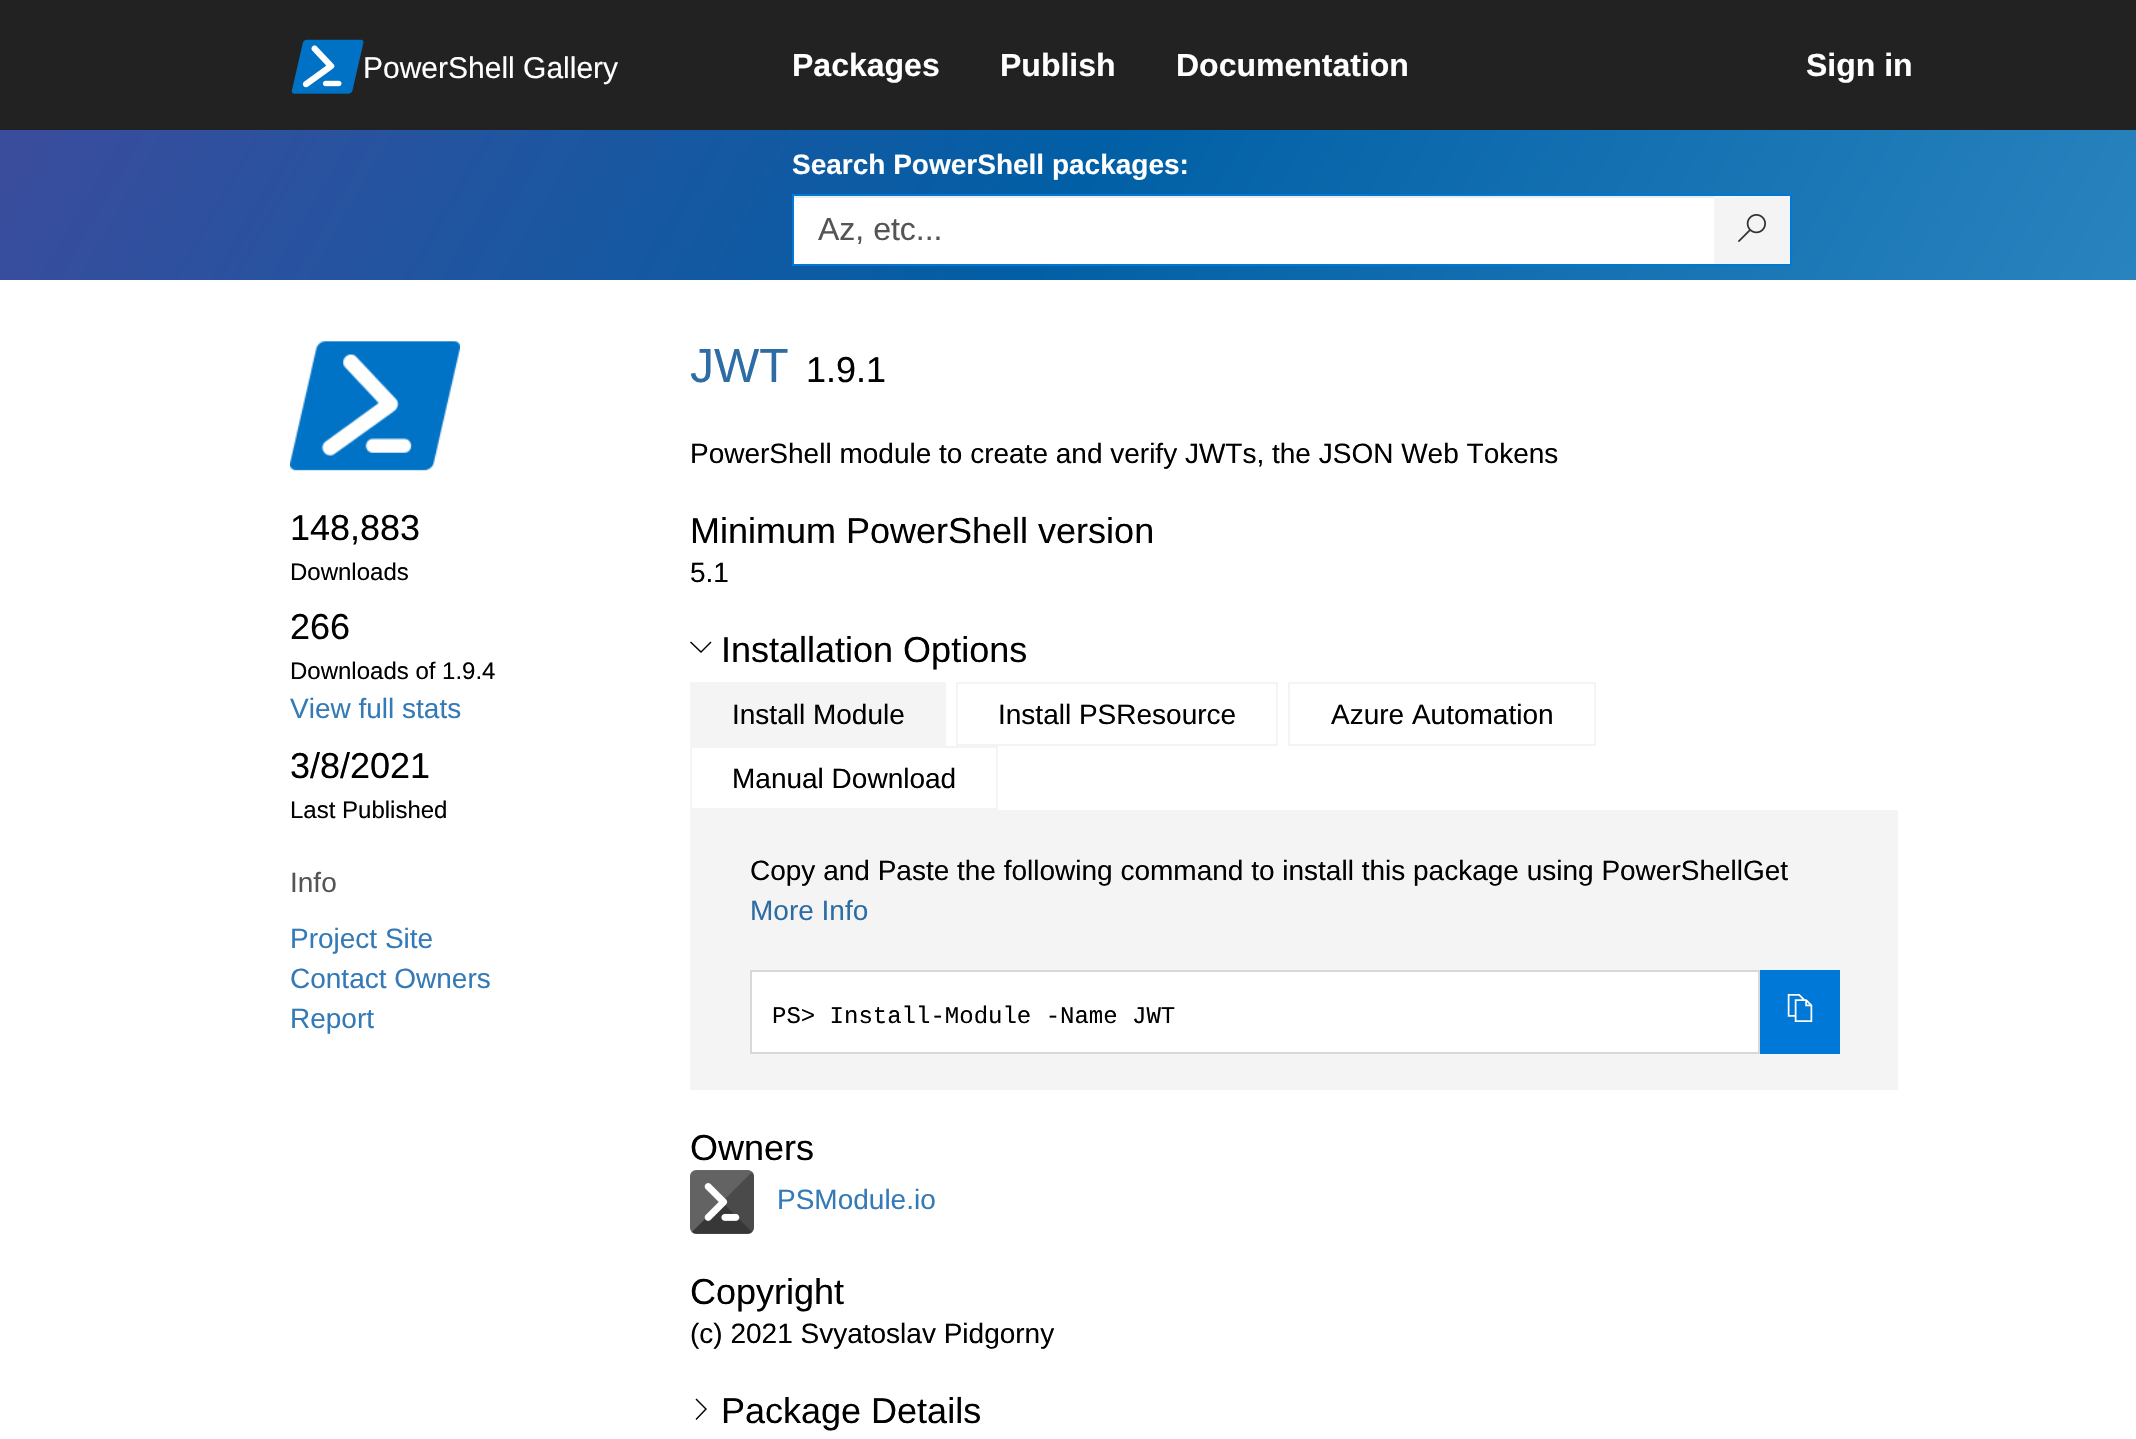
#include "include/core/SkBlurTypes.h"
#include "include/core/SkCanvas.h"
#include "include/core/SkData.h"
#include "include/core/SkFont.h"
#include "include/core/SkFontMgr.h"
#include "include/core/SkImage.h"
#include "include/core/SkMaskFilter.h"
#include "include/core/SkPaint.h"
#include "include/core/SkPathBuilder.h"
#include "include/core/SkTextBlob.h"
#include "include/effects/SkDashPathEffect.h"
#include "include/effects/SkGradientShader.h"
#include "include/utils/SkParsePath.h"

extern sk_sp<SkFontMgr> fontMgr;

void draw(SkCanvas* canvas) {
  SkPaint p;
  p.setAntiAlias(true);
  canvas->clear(SK_ColorWHITE);
  p.setColor(SkColorSetRGB(34, 34, 34));
  canvas->drawRect(SkRect::MakeLTRB(0, 0, 2136, 130), p);
  canvas->drawImageRect(SkImages::DeferredFromEncodedData(SkData::MakeFromFileName("images/1.png")), SkRect::MakeLTRB(291, 39, 364, 94), SkSamplingOptions());
  {
    const SkColor colors[] = {SkColorSetRGB(59, 76, 156), SkColorSetRGB(1, 95, 165), SkColorSetRGB(41, 131, 190)};
    const float stops[] = {0, 0.5f, 1};
    const SkPoint ends[] = {{235, -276}, {1901, 686}};
    p.setShader(SkGradientShader::MakeLinear(ends, colors, stops, 3, SkTileMode::kClamp));
    p.setAlpha(255);
  }
  canvas->drawRect(SkRect::MakeLTRB(0, 130, 2136, 280), p);
  p.setShader(nullptr);
  p.setColor(SK_ColorWHITE);
  canvas->drawRect(SkRect::MakeLTRB(794, 198, 1714, 264), p);
  p.setColor(SkColorSetRGB(236, 236, 236));
  canvas->drawRect(SkRect::MakeLTRB(794, 196, 1716, 198), p);
  p.setColor(SkColorSetRGB(0, 120, 215));
  canvas->drawRect(SkRect::MakeLTRB(792, 194, 1792, 196), p);
  canvas->drawRect(SkRect::MakeLTRB(792, 264, 1716, 266), p);
  canvas->drawRect(SkRect::MakeLTRB(792, 194, 794, 266), p);
  p.setColor(SkColorSetRGB(244, 244, 244));
  canvas->drawRect(SkRect::MakeLTRB(1714, 196, 1790, 264), p);
  p.setColor(SkColorSetRGB(0, 120, 215));
  canvas->drawRect(SkRect::MakeLTRB(1790, 194, 1792, 266), p);
  canvas->drawRect(SkRect::MakeLTRB(1714, 264, 1792, 266), p);
  canvas->drawImageRect(SkImages::DeferredFromEncodedData(SkData::MakeFromFileName("images/2.png")), SkRect::MakeLTRB(1738, 214, 1766, 242), SkSamplingOptions());
  canvas->drawImageRect(SkImages::DeferredFromEncodedData(SkData::MakeFromFileName("images/3.png")), SkRect::MakeLTRB(290, 341, 460, 471), SkSamplingOptions());
  p.setColor(SK_ColorBLACK);
  canvas->drawPath(SkPathBuilder().moveTo(710.5f, 641.5f).lineTo(711.5f, 642.5f).lineTo(701, 653).lineTo(690, 642.5f).lineTo(691, 641.5f).lineTo(701, 651).close().detach(), p);
  p.setColor(SkColorSetRGB(244, 244, 244));
  canvas->drawRect(SkRect::MakeLTRB(690, 810, 1898, 1090), p);
  canvas->drawRect(SkRect::MakeLTRB(690, 682, 946, 746), p);
  p.setStyle(SkPaint::kStroke_Style);
  p.setStrokeWidth(2);
  canvas->drawRect(SkRect::MakeLTRB(957, 683, 1277, 745), p);
  canvas->drawRect(SkRect::MakeLTRB(1289, 683, 1595, 745), p);
  canvas->drawRect(SkRect::MakeLTRB(691, 747, 997, 809), p);
  p.setStyle(SkPaint::kFill_Style);
  p.setColor(SK_ColorWHITE);
  canvas->drawRect(SkRect::MakeLTRB(751, 971, 1759, 1053), p);
  p.setStyle(SkPaint::kStroke_Style);
  p.setColor(SkColorSetRGB(216, 216, 216));
  canvas->drawRect(SkRect::MakeLTRB(751, 971, 1759, 1053), p);
  p.setStyle(SkPaint::kFill_Style);
  p.setColor(SkColorSetRGB(0, 120, 215));
  canvas->drawRect(SkRect::MakeLTRB(1760, 970, 1840, 1054), p);
  canvas->drawImageRect(SkImages::DeferredFromEncodedData(SkData::MakeFromFileName("images/4.png")), SkRect::MakeLTRB(1787, 994, 1813, 1022), SkSamplingOptions());
  canvas->drawImageRect(SkImages::DeferredFromEncodedData(SkData::MakeFromFileName("images/5.png")), SkRect::MakeLTRB(690, 1170, 754, 1234), SkSamplingOptions());
  p.setColor(SK_ColorBLACK);
  canvas->drawPath(SkPathBuilder().moveTo(695.5f, 1419).lineTo(705, 1409).lineTo(695.5f, 1399.5f).lineTo(696.5f, 1398.5f).lineTo(707, 1409).lineTo(696.5f, 1420).close().detach(), p);
  SkFont font1(fontMgr->matchFamilyStyle("Liberation Sans", SkFontStyle::Normal()), 30);
  font1.setSubpixel(true);
  p.setColor(SK_ColorWHITE);
  canvas->drawString("PowerShell Gallery", 363, 78, font1, p);
  SkFont font2(fontMgr->matchFamilyStyle("Liberation Sans", SkFontStyle::Bold()), 32);
  font2.setSubpixel(true);
  canvas->drawString("Packages", 792, 76, font2, p);
  canvas->drawString("Publish", 1000, 76, font2, p);
  canvas->drawString("Documentation", 1176, 76, font2, p);
  canvas->drawString("Sign in", 1806, 76, font2, p);
  SkFont font3(fontMgr->matchFamilyStyle("Liberation Sans", SkFontStyle::Bold()), 28);
  font3.setSubpixel(true);
  canvas->drawString("Search PowerShell packages:", 792, 174, font3, p);
  SkFont font4(fontMgr->matchFamilyStyle("Liberation Sans", SkFontStyle::Normal()), 32);
  font4.setSubpixel(true);
  p.setColor(SkColorSetRGB(85, 85, 85));
  canvas->drawString("Az, etc...", 818, 240, font4, p);
  SkFont font5(fontMgr->matchFamilyStyle("Liberation Sans", SkFontStyle::Normal()), 36);
  font5.setSubpixel(true);
  p.setColor(SK_ColorBLACK);
  canvas->drawString("148,883", 290, 540, font5, p);
  SkFont font6(fontMgr->matchFamilyStyle("Liberation Sans", SkFontStyle::Normal()), 24);
  font6.setSubpixel(true);
  canvas->drawString("Downloads", 290, 580, font6, p);
  canvas->drawString("266", 290, 639, font5, p);
  canvas->drawString("Downloads of 1.9.4", 290, 679, font6, p);
  SkFont font7(fontMgr->matchFamilyStyle("Liberation Sans", SkFontStyle::Normal()), 28);
  font7.setSubpixel(true);
  p.setColor(SkColorSetRGB(51, 122, 183));
  canvas->drawString("View full stats", 290, 718, font7, p);
  p.setColor(SK_ColorBLACK);
  canvas->drawString("3/8/2021", 290, 778, font5, p);
  canvas->drawString("Last Published", 290, 818, font6, p);
  p.setColor(SkColorSetRGB(85, 85, 85));
  canvas->drawString("Info", 290, 892, font7, p);
  p.setColor(SkColorSetRGB(51, 122, 183));
  canvas->drawString("Project Site", 290, 948, font7, p);
  canvas->drawString("Contact Owners", 290, 988, font7, p);
  canvas->drawString("Report", 290, 1028, font7, p);
  SkFont font8(fontMgr->matchFamilyStyle("Liberation Sans", SkFontStyle::Normal()), 48);
  font8.setSubpixel(true);
  p.setColor(SkColorSetRGB(46, 109, 164));
  canvas->drawString("JWT", 690, 382, font8, p);
  p.setColor(SK_ColorBLACK);
  canvas->drawString("1.9.1", 806, 382, font5, p);
  canvas->drawString("PowerShell module to create and verify JWTs, the JSON Web Tokens", 690, 463, font7, p);
  canvas->drawString("Minimum PowerShell version", 690, 543, font5, p);
  canvas->drawString("5.1", 690, 582, font7, p);
  canvas->drawString("Installation Options", 721, 662, font5, p);
  canvas->drawString("Install Module", 732, 724, font7, p);
  canvas->drawString("Install PSResource", 998, 724, font7, p);
  canvas->drawString("Azure Automation", 1331, 724, font7, p);
  canvas->drawString("Manual Download", 732, 788, font7, p);
  canvas->drawString("Copy and Paste the following command to install this package using PowerShellGet", 750, 880, font7, p);
  p.setColor(SkColorSetRGB(46, 109, 164));
  canvas->drawString("More Info", 750, 920, font7, p);
  SkFont font9(fontMgr->matchFamilyStyle("Liberation Mono", SkFontStyle::Normal()), 24);
  font9.setSubpixel(true);
  p.setColor(SK_ColorBLACK);
  canvas->drawString("PS> Install-Module -Name JWT", 772, 1023, font9, p);
  canvas->drawString("Owners", 690, 1160, font5, p);
  p.setColor(SkColorSetRGB(51, 122, 183));
  canvas->drawString("PSModule.io", 777, 1209, font7, p);
  p.setColor(SK_ColorBLACK);
  canvas->drawString("Copyright", 690, 1304, font5, p);
  canvas->drawString("(c) 2021 Svyatoslav Pidgorny", 690, 1343, font7, p);
  canvas->drawString("Package Details", 721, 1423, font5, p);
}
